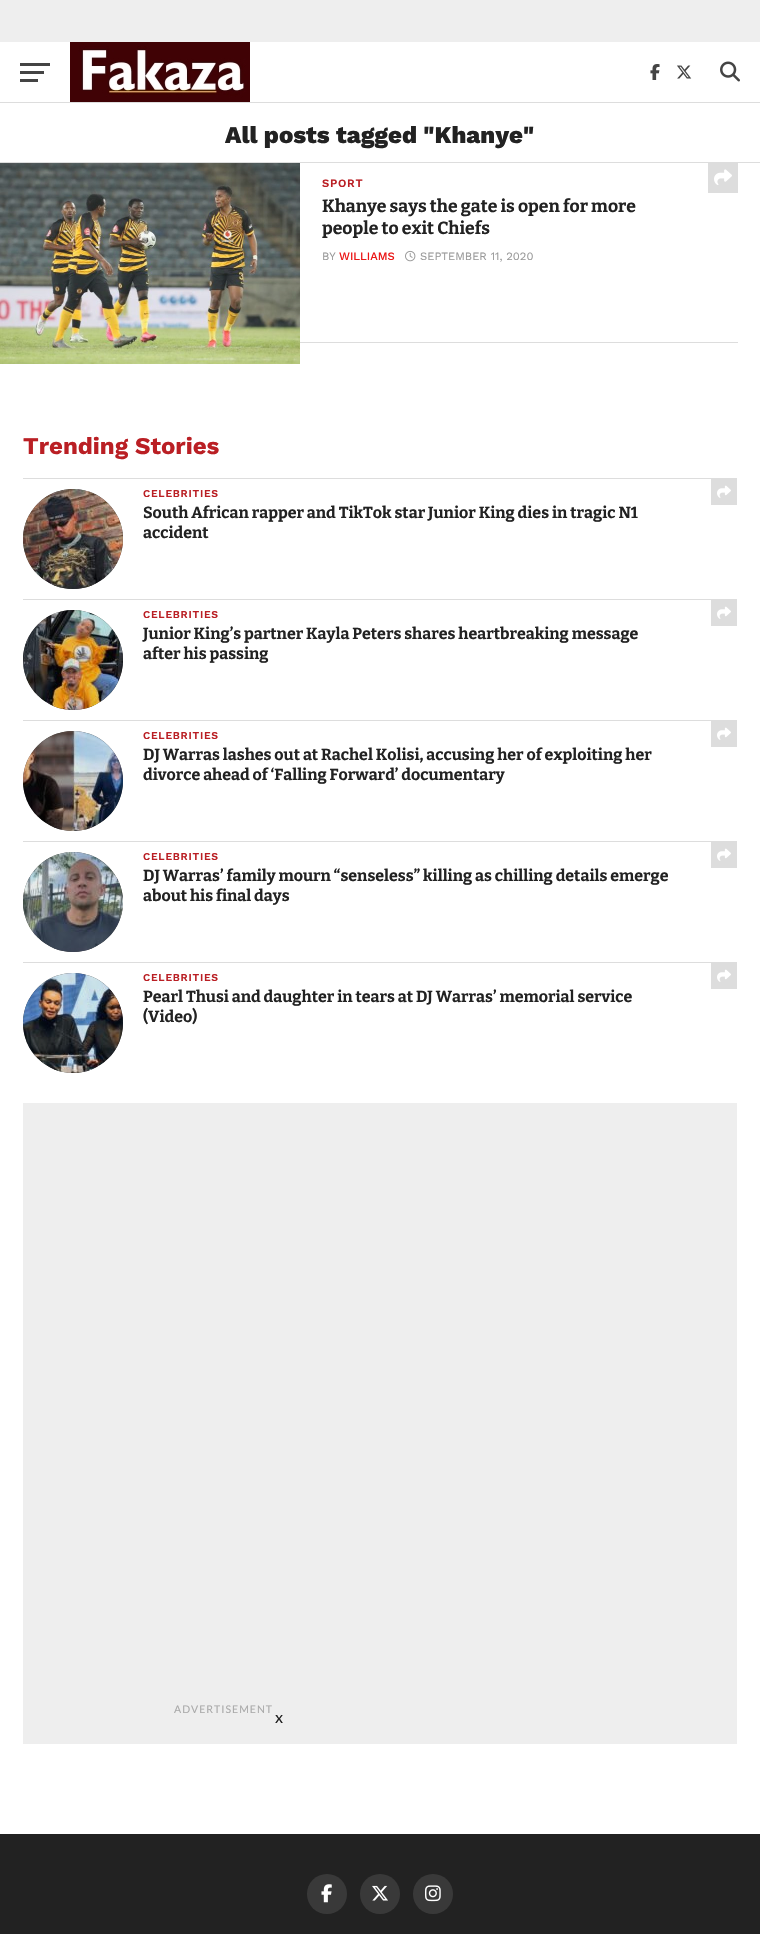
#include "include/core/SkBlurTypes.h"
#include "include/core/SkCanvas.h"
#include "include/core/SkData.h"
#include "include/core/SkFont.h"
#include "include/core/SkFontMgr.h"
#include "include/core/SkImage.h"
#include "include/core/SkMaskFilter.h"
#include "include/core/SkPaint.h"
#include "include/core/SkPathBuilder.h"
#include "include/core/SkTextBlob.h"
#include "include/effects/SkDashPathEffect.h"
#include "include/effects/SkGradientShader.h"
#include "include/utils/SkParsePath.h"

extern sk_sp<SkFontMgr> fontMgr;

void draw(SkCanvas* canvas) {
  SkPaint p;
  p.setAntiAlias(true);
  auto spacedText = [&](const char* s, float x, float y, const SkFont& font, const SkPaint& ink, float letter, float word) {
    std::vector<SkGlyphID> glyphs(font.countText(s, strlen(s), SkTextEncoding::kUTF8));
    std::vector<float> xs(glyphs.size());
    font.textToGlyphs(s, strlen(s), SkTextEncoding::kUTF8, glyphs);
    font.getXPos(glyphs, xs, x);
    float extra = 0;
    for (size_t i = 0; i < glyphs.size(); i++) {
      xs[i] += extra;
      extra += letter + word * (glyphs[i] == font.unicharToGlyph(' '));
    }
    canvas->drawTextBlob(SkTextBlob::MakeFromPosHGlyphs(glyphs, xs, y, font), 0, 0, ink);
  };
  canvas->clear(SK_ColorWHITE);
  p.setColor(SkColorSetRGB(238, 238, 238));
  canvas->drawRect(SkRect::MakeLTRB(0, 0, 760, 42), p);
  p.setColor(SkColorSetRGB(68, 68, 68));
  canvas->drawRect(SkRect::MakeLTRB(20, 63, 50, 66), p);
  canvas->drawRect(SkRect::MakeLTRB(20, 71, 44, 74), p);
  canvas->drawRect(SkRect::MakeLTRB(20, 79, 38, 82), p);
  canvas->drawImageRect(SkImages::DeferredFromEncodedData(SkData::MakeFromFileName("images/1.png")), SkRect::MakeLTRB(70, 42, 250, 102), SkSamplingOptions());
  canvas->drawImageRect(SkImages::DeferredFromEncodedData(SkData::MakeFromFileName("images/2.png")), SkRect::MakeLTRB(650, 64, 660, 80), SkSamplingOptions());
  canvas->drawImageRect(SkImages::DeferredFromEncodedData(SkData::MakeFromFileName("images/3.png")), SkRect::MakeLTRB(677, 65, 692, 79), SkSamplingOptions());
  canvas->drawImageRect(SkImages::DeferredFromEncodedData(SkData::MakeFromFileName("images/4.png")), SkRect::MakeLTRB(720, 61, 740, 82), SkSamplingOptions());
  p.setColor(SkColorSetRGB(221, 221, 221));
  canvas->drawRect(SkRect::MakeLTRB(0, 102, 760, 103), p);
  canvas->drawRect(SkRect::MakeLTRB(0, 162, 760, 163), p);
  canvas->drawImageRect(SkImages::DeferredFromEncodedData(SkData::MakeFromFileName("images/5.png")), SkRect::MakeLTRB(0, 163, 300, 364), SkSamplingOptions());
  canvas->drawRect(SkRect::MakeLTRB(300, 342, 738, 343), p);
  canvas->drawRect(SkRect::MakeLTRB(708, 163, 738, 193), p);
  canvas->drawImageRect(SkImages::DeferredFromEncodedData(SkData::MakeFromFileName("images/6.png")), SkRect::MakeLTRB(714, 169, 732, 185), SkSamplingOptions());
  canvas->drawImageRect(SkImages::DeferredFromEncodedData(SkData::MakeFromFileName("images/7.png")), SkRect::MakeLTRB(405, 250, 416, 262), SkSamplingOptions());
  canvas->drawRect(SkRect::MakeLTRB(23, 478, 737, 479), p);
  p.setColor(SkColorSetRGB(34, 34, 34));
  canvas->drawCircle(73, 539, 50, p);
  canvas->drawImageRect(SkImages::DeferredFromEncodedData(SkData::MakeFromFileName("images/8.png")), SkRect::MakeLTRB(23, 489, 123, 589), SkSamplingOptions());
  p.setColor(SkColorSetRGB(221, 221, 221));
  canvas->drawRect(SkRect::MakeLTRB(711, 479, 737, 505), p);
  canvas->drawImageRect(SkImages::DeferredFromEncodedData(SkData::MakeFromFileName("images/9.png")), SkRect::MakeLTRB(717, 485, 731, 498), SkSamplingOptions());
  canvas->drawRect(SkRect::MakeLTRB(23, 599, 737, 600), p);
  p.setColor(SkColorSetRGB(34, 34, 34));
  canvas->drawCircle(73, 660, 50, p);
  canvas->drawImageRect(SkImages::DeferredFromEncodedData(SkData::MakeFromFileName("images/10.png")), SkRect::MakeLTRB(23, 610, 123, 710), SkSamplingOptions());
  p.setColor(SkColorSetRGB(221, 221, 221));
  canvas->drawRect(SkRect::MakeLTRB(711, 600, 737, 626), p);
  canvas->drawImageRect(SkImages::DeferredFromEncodedData(SkData::MakeFromFileName("images/9.png")), SkRect::MakeLTRB(717, 606, 731, 619), SkSamplingOptions());
  canvas->drawRect(SkRect::MakeLTRB(23, 720, 737, 721), p);
  p.setColor(SkColorSetRGB(34, 34, 34));
  canvas->drawCircle(73, 781, 50, p);
  canvas->drawImageRect(SkImages::DeferredFromEncodedData(SkData::MakeFromFileName("images/11.png")), SkRect::MakeLTRB(23, 731, 123, 831), SkSamplingOptions());
  p.setColor(SkColorSetRGB(221, 221, 221));
  canvas->drawRect(SkRect::MakeLTRB(711, 721, 737, 747), p);
  canvas->drawImageRect(SkImages::DeferredFromEncodedData(SkData::MakeFromFileName("images/9.png")), SkRect::MakeLTRB(717, 727, 731, 740), SkSamplingOptions());
  canvas->drawRect(SkRect::MakeLTRB(23, 841, 737, 842), p);
  p.setColor(SkColorSetRGB(34, 34, 34));
  canvas->drawCircle(73, 902, 50, p);
  canvas->drawImageRect(SkImages::DeferredFromEncodedData(SkData::MakeFromFileName("images/12.png")), SkRect::MakeLTRB(23, 852, 123, 952), SkSamplingOptions());
  p.setColor(SkColorSetRGB(221, 221, 221));
  canvas->drawRect(SkRect::MakeLTRB(711, 842, 737, 868), p);
  canvas->drawImageRect(SkImages::DeferredFromEncodedData(SkData::MakeFromFileName("images/9.png")), SkRect::MakeLTRB(717, 848, 731, 861), SkSamplingOptions());
  canvas->drawRect(SkRect::MakeLTRB(23, 962, 737, 963), p);
  p.setColor(SkColorSetRGB(34, 34, 34));
  canvas->drawCircle(73, 1023, 50, p);
  canvas->drawImageRect(SkImages::DeferredFromEncodedData(SkData::MakeFromFileName("images/13.png")), SkRect::MakeLTRB(23, 973, 123, 1073), SkSamplingOptions());
  p.setColor(SkColorSetRGB(221, 221, 221));
  canvas->drawRect(SkRect::MakeLTRB(711, 963, 737, 989), p);
  canvas->drawImageRect(SkImages::DeferredFromEncodedData(SkData::MakeFromFileName("images/9.png")), SkRect::MakeLTRB(717, 969, 731, 982), SkSamplingOptions());
  p.setColor(SkColorSetRGB(238, 238, 238));
  canvas->drawRect(SkRect::MakeLTRB(23, 1103, 737, 1744), p);
  p.setColor(SkColorSetRGB(34, 34, 34));
  canvas->drawRect(SkRect::MakeLTRB(0, 1834, 760, 1934), p);
  p.setColor(SkColorSetRGB(57, 57, 57));
  canvas->drawCircle(327, 1894, 20, p);
  canvas->drawImageRect(SkImages::DeferredFromEncodedData(SkData::MakeFromFileName("images/14.png")), SkRect::MakeLTRB(321, 1884, 332, 1903), SkSamplingOptions());
  canvas->drawCircle(380, 1894, 20, p);
  canvas->drawImageRect(SkImages::DeferredFromEncodedData(SkData::MakeFromFileName("images/15.png")), SkRect::MakeLTRB(372, 1885, 388, 1901), SkSamplingOptions());
  canvas->drawCircle(433, 1894, 20, p);
  canvas->drawImageRect(SkImages::DeferredFromEncodedData(SkData::MakeFromFileName("images/16.png")), SkRect::MakeLTRB(425, 1885, 441, 1902), SkSamplingOptions());
  SkFont font1(fontMgr->matchFamilyStyle("Work Sans", SkFontStyle(800, SkFontStyle::kNormal_Width, SkFontStyle::kUpright_Slant)), 24);
  font1.setSubpixel(true);
  p.setColor(SkColorSetRGB(34, 34, 34));
  canvas->drawString("All posts tagged \"Khanye\"", 225, 143, font1, p);
  SkFont font2(fontMgr->matchFamilyStyle("Work Sans", SkFontStyle(600, SkFontStyle::kNormal_Width, SkFontStyle::kUpright_Slant)), 11.25f);
  font2.setSubpixel(true);
  p.setColor(SkColorSetRGB(186, 31, 36));
  spacedText("SPORT", 322, 187, font2, p, 0.75f, 0);
  SkFont font3(fontMgr->matchFamilyStyle("Bitter", SkFontStyle::Bold()), 17.6f);
  font3.setSubpixel(true);
  p.setColor(SkColorSetRGB(34, 34, 34));
  canvas->drawString("Khanye says the gate is open for more", 322, 212, font3, p);
  canvas->drawString("people to exit Chiefs", 322, 234, font3, p);
  SkFont font4(fontMgr->matchFamilyStyle("Work Sans", SkFontStyle::Normal()), 11.25f);
  font4.setSubpixel(true);
  p.setColor(SkColorSetRGB(153, 153, 153));
  canvas->drawString("BY", 322, 260, font4, p);
  SkFont font5(fontMgr->matchFamilyStyle("Work Sans", SkFontStyle(500, SkFontStyle::kNormal_Width, SkFontStyle::kUpright_Slant)), 11.25f);
  font5.setSubpixel(true);
  p.setColor(SkColorSetRGB(235, 23, 23));
  canvas->drawString("WILLIAMS", 339, 260, font5, p);
  p.setColor(SkColorSetRGB(153, 153, 153));
  canvas->drawString("SEPTEMBER 11, 2020", 420, 260, font4, p);
  SkFont font6(fontMgr->matchFamilyStyle("Work Sans", SkFontStyle::Bold()), 24);
  font6.setSubpixel(true);
  p.setColor(SkColorSetRGB(186, 31, 36));
  canvas->drawString("Trending Stories", 23, 454, font6, p);
  SkFont font7(fontMgr->matchFamilyStyle("Work Sans", SkFontStyle(600, SkFontStyle::kNormal_Width, SkFontStyle::kUpright_Slant)), 10.5f);
  font7.setSubpixel(true);
  spacedText("CELEBRITIES", 143, 497, font7, p, 0.75f, 0);
  SkFont font8(fontMgr->matchFamilyStyle("Bitter", SkFontStyle::Bold()), 16);
  font8.setSubpixel(true);
  p.setColor(SkColorSetRGB(34, 34, 34));
  canvas->drawString("South African rapper and TikTok star Junior King dies in tragic N1", 143, 518, font8, p);
  canvas->drawString("accident", 143, 538, font8, p);
  p.setColor(SkColorSetRGB(186, 31, 36));
  spacedText("CELEBRITIES", 143, 618, font7, p, 0.75f, 0);
  p.setColor(SkColorSetRGB(34, 34, 34));
  canvas->drawString("Junior King’s partner Kayla Peters shares heartbreaking message", 143, 639, font8, p);
  canvas->drawString("after his passing", 143, 659, font8, p);
  p.setColor(SkColorSetRGB(186, 31, 36));
  spacedText("CELEBRITIES", 143, 739, font7, p, 0.75f, 0);
  p.setColor(SkColorSetRGB(34, 34, 34));
  canvas->drawString("DJ Warras lashes out at Rachel Kolisi, accusing her of exploiting her", 143, 760, font8, p);
  canvas->drawString("divorce ahead of ‘Falling Forward’ documentary", 143, 780, font8, p);
  p.setColor(SkColorSetRGB(186, 31, 36));
  spacedText("CELEBRITIES", 143, 860, font7, p, 0.75f, 0);
  p.setColor(SkColorSetRGB(34, 34, 34));
  canvas->drawString("DJ Warras’ family mourn “senseless” killing as chilling details emerge", 143, 881, font8, p);
  canvas->drawString("about his final days", 143, 901, font8, p);
  p.setColor(SkColorSetRGB(186, 31, 36));
  spacedText("CELEBRITIES", 143, 981, font7, p, 0.75f, 0);
  p.setColor(SkColorSetRGB(34, 34, 34));
  canvas->drawString("Pearl Thusi and daughter in tears at DJ Warras’ memorial service", 143, 1002, font8, p);
  canvas->drawString("(Video)", 143, 1022, font8, p);
  SkFont font9(fontMgr->matchFamilyStyle("Lato", SkFontStyle::Normal()), 10.5f);
  font9.setSubpixel(true);
  p.setColor(SkColorSetRGB(170, 170, 170));
  spacedText("ADVERTISEMENT", 174, 1713, font9, p, 1, 0);
  SkFont font10(fontMgr->matchFamilyStyle("Lato", SkFontStyle::Normal()), 16);
  font10.setSubpixel(true);
  p.setColor(SkColorSetRGB(34, 34, 34));
  canvas->drawString("x", 275, 1723, font10, p);
}
